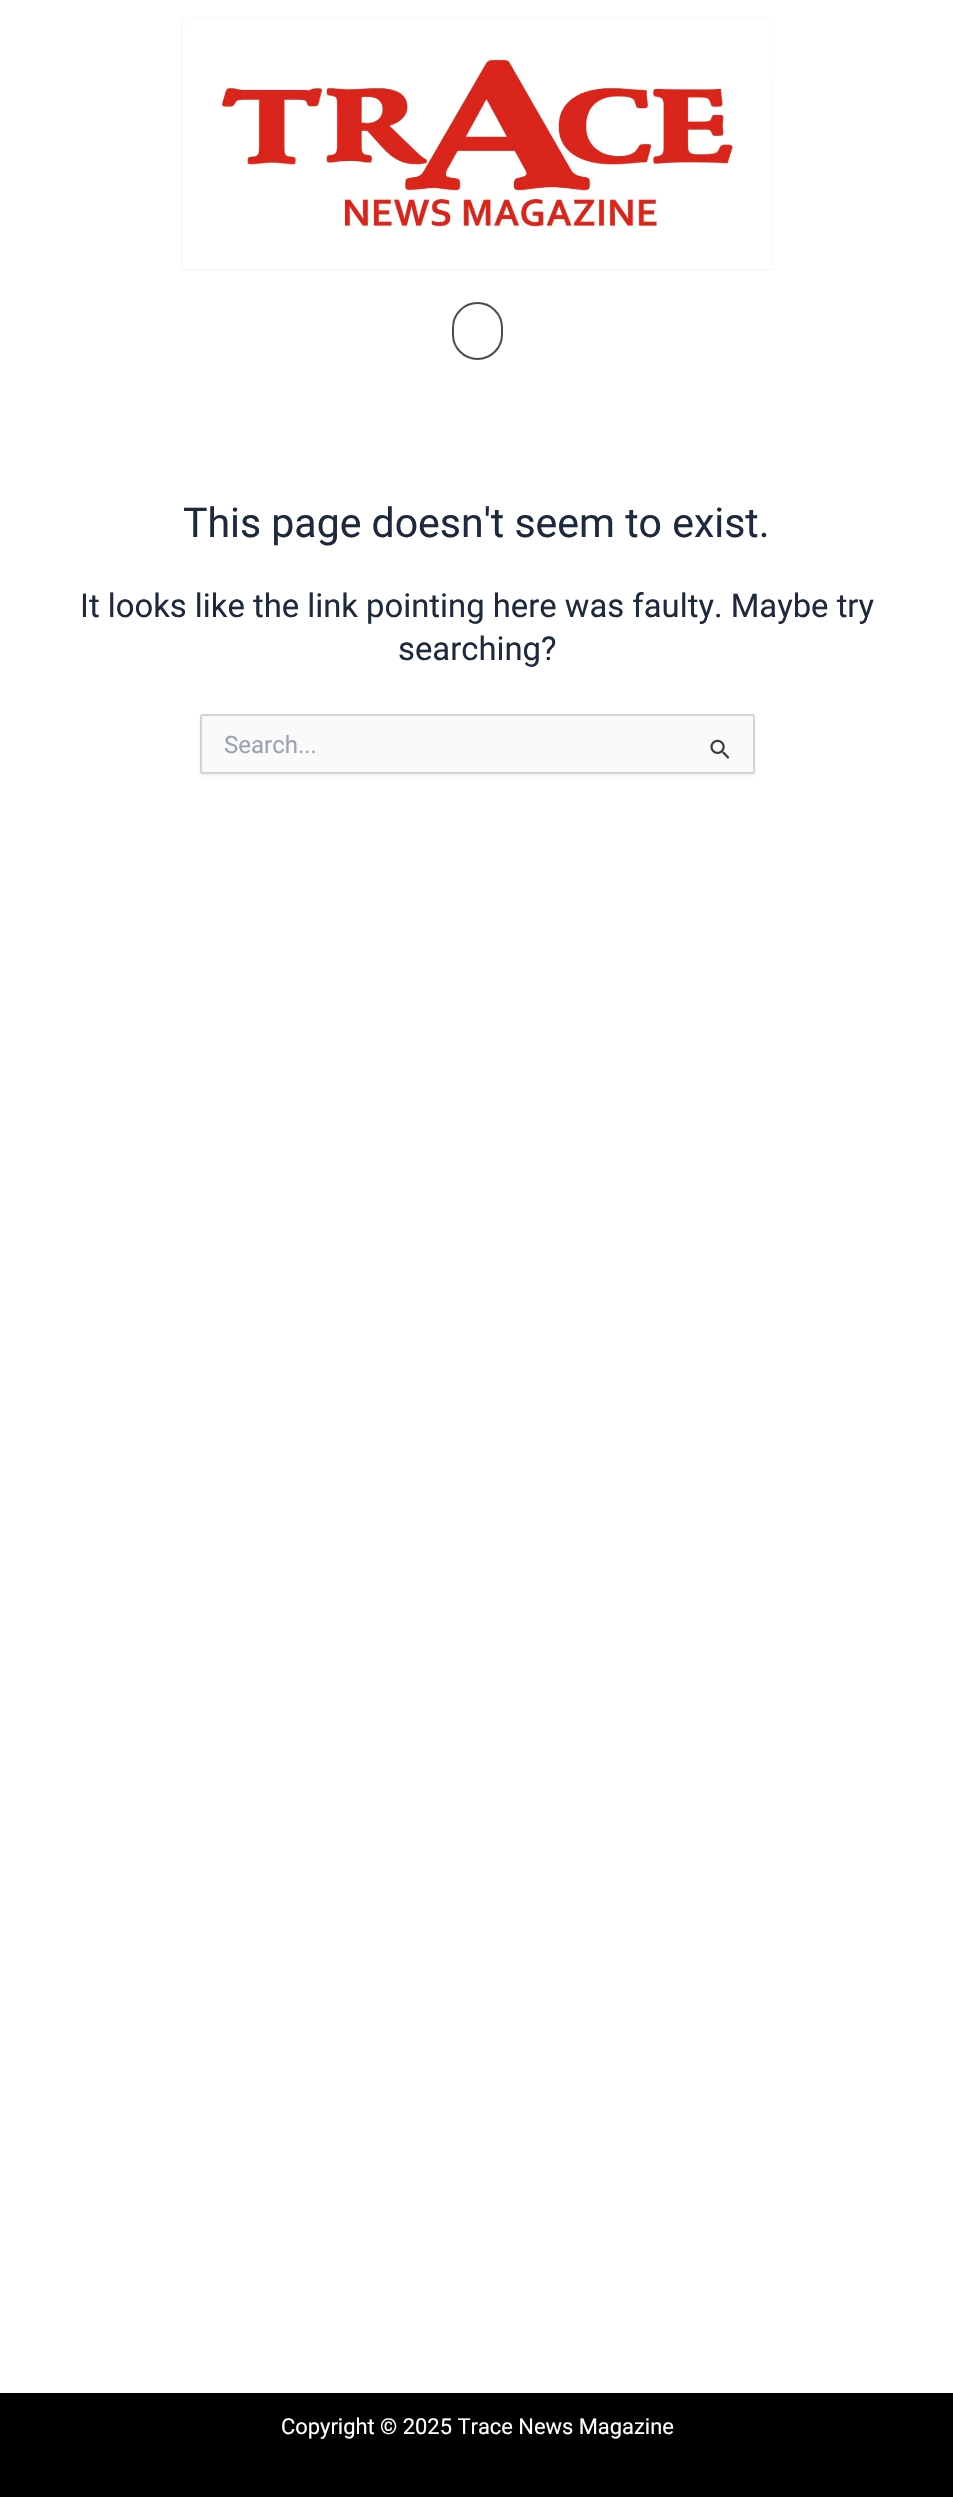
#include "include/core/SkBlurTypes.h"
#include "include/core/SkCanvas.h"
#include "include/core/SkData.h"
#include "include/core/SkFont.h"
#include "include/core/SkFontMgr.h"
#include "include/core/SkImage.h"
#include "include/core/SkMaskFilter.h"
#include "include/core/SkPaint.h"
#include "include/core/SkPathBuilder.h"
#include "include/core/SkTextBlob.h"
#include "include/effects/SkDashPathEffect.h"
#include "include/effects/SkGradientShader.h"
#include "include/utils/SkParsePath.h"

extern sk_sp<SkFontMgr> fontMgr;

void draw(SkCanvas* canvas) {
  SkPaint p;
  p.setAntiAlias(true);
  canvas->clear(SK_ColorWHITE);
  canvas->drawImageRect(SkImages::DeferredFromEncodedData(SkData::MakeFromFileName("images/1.png")), SkRect::MakeLTRB(181, 16, 773, 270), SkSamplingOptions());
  p.setStyle(SkPaint::kStroke_Style);
  p.setStrokeWidth(2);
  p.setColor(SkColorSetRGB(73, 76, 79));
  canvas->drawRoundRect(SkRect::MakeLTRB(453, 303, 502, 359), 24.5f, 24.5f, p);
  p.setStyle(SkPaint::kFill_Style);
  p.setColor(SkColorSetARGB(13, 0, 0, 0));
  p.setMaskFilter(SkMaskFilter::MakeBlur(kNormal_SkBlurStyle, 1.5f));
  canvas->drawRoundRect(SkRect::MakeLTRB(200, 716, 755, 776), 3, 3, p);
  p.setMaskFilter(nullptr);
  p.setColor(SkColorSetRGB(250, 250, 250));
  canvas->drawRoundRect(SkRect::MakeLTRB(201, 715, 754, 773), 2, 2, p);
  p.setStyle(SkPaint::kStroke_Style);
  p.setColor(SkColorSetRGB(209, 213, 219));
  canvas->drawRoundRect(SkRect::MakeLTRB(201, 715, 754, 773), 2, 2, p);
  canvas->drawImageRect(SkImages::DeferredFromEncodedData(SkData::MakeFromFileName("images/2.png")), SkRect::MakeLTRB(710, 739, 729, 759), SkSamplingOptions());
  p.setStyle(SkPaint::kFill_Style);
  p.setColor(SK_ColorBLACK);
  canvas->drawRect(SkRect::MakeLTRB(0, 2393, 953, 2497), p);
  SkFont font1(fontMgr->matchFamilyStyle("Roboto", SkFontStyle::Normal()), 41);
  font1.setSubpixel(true);
  p.setColor(SkColorSetRGB(30, 41, 59));
  canvas->drawString("This page doesn't seem to exist.", 183, 537, font1, p);
  SkFont font2(fontMgr->matchFamilyStyle("Roboto", SkFontStyle::Normal()), 32.8f);
  font2.setSubpixel(true);
  canvas->drawString("It looks like the link pointing here was faulty. Maybe try", 80, 617, font2, p);
  canvas->drawString("searching?", 398, 660, font2, p);
  SkFont font3(fontMgr->matchFamilyStyle("Roboto", SkFontStyle::Normal()), 24);
  font3.setSubpixel(true);
  p.setColor(SkColorSetRGB(156, 163, 175));
  canvas->drawString("Search...", 224, 753, font3, p);
  SkFont font4(fontMgr->matchFamilyStyle("Roboto", SkFontStyle::Normal()), 21.9f);
  font4.setSubpixel(true);
  p.setColor(SK_ColorWHITE);
  canvas->drawString("Copyright © 2025 Trace News Magazine", 281, 2434, font4, p);
}
